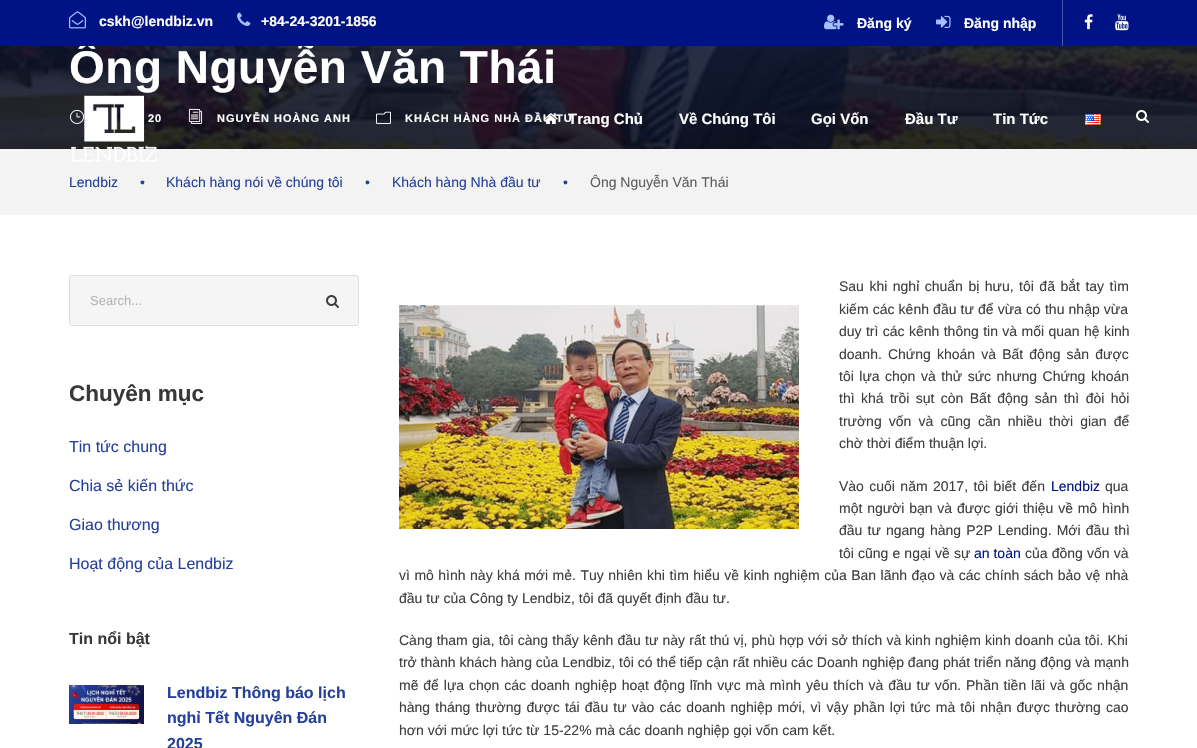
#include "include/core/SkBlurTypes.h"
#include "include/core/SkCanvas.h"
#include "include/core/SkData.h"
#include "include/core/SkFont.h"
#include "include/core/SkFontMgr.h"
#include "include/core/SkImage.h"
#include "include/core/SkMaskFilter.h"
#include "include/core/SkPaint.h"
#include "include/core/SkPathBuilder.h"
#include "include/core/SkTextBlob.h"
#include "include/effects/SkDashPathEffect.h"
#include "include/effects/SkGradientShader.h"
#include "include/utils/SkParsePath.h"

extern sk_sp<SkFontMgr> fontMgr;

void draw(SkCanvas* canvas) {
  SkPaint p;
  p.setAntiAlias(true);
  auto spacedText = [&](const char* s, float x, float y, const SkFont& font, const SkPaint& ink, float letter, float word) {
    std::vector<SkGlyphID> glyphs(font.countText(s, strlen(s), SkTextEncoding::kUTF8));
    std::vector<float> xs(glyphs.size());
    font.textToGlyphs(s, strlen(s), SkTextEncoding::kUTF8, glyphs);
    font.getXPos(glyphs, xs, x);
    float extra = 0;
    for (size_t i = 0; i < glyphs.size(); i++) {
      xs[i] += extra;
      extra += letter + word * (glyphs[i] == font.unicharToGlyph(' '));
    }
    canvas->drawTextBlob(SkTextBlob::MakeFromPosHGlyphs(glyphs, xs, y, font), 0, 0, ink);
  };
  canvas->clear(SK_ColorWHITE);
  canvas->drawImageRect(SkImages::DeferredFromEncodedData(SkData::MakeFromFileName("images/11.png")), SkRect::MakeLTRB(0, 46, 1197, 149), SkSamplingOptions());
  canvas->drawImageRect(SkImages::DeferredFromEncodedData(SkData::MakeFromFileName("images/15.png")), SkRect::MakeLTRB(0, 46, 1197, 149), SkSamplingOptions());
  canvas->drawImageRect(SkImages::DeferredFromEncodedData(SkData::MakeFromFileName("images/16.png")), SkRect::MakeLTRB(0, 46, 1197, 149), SkSamplingOptions());
  canvas->drawImageRect(SkImages::DeferredFromEncodedData(SkData::MakeFromFileName("images/9.png")), SkRect::MakeLTRB(1085, 114, 1101, 125), SkSamplingOptions());
  canvas->drawImageRect(SkImages::DeferredFromEncodedData(SkData::MakeFromFileName("images/10.png")), SkRect::MakeLTRB(1136, 110, 1149, 123), SkSamplingOptions());
  canvas->drawImageRect(SkImages::DeferredFromEncodedData(SkData::MakeFromFileName("images/12.png")), SkRect::MakeLTRB(70, 109, 84, 124), SkSamplingOptions());
  canvas->drawImageRect(SkImages::DeferredFromEncodedData(SkData::MakeFromFileName("images/13.png")), SkRect::MakeLTRB(188, 108, 203, 124), SkSamplingOptions());
  canvas->drawImageRect(SkImages::DeferredFromEncodedData(SkData::MakeFromFileName("images/14.png")), SkRect::MakeLTRB(376, 111, 391, 124), SkSamplingOptions());
  p.setColor(SkColorSetRGB(243, 243, 243));
  canvas->drawRect(SkRect::MakeLTRB(0, 149, 1197, 215), p);
  p.setColor(SkColorSetRGB(245, 245, 245));
  canvas->drawRoundRect(SkRect::MakeLTRB(69.5f, 275.5f, 358.5f, 325.5f), 2.5f, 2.5f, p);
  p.setStyle(SkPaint::kStroke_Style);
  p.setStrokeWidth(1);
  p.setColor(SkColorSetRGB(224, 224, 224));
  canvas->drawRoundRect(SkRect::MakeLTRB(69.5f, 275.5f, 358.5f, 325.5f), 2.5f, 2.5f, p);
  canvas->drawImageRect(SkImages::DeferredFromEncodedData(SkData::MakeFromFileName("images/17.png")), SkRect::MakeLTRB(326, 295, 339, 308), SkSamplingOptions());
  canvas->drawImageRect(SkImages::DeferredFromEncodedData(SkData::MakeFromFileName("images/18.png")), SkRect::MakeLTRB(69, 685, 144, 724), SkSamplingOptions());
  canvas->drawImageRect(SkImages::DeferredFromEncodedData(SkData::MakeFromFileName("images/19.png")), SkRect::MakeLTRB(399, 305, 799, 529), SkSamplingOptions());
  SkFont font1(fontMgr->matchFamilyStyle("Liberation Sans", SkFontStyle::Bold()), 15);
  font1.setSubpixel(true);
  p.setStyle(SkPaint::kFill_Style);
  p.setColor(SK_ColorWHITE);
  canvas->drawString("Về Chúng Tôi", 679, 124, font1, p);
  canvas->drawString("Gọi Vốn", 811, 124, font1, p);
  canvas->drawString("Đầu Tư", 905, 124, font1, p);
  canvas->drawString("Tin Tức", 993, 124, font1, p);
  SkFont font2(fontMgr->matchFamilyStyle("Liberation Sans", SkFontStyle::Bold()), 46);
  font2.setSubpixel(true);
  spacedText("Ông Nguyễn Văn Thái", 69, 83, font2, p, 0.5f, 0);
  p.setColor(SkColorSetRGB(0, 19, 132));
  canvas->drawRect(SkRect::MakeLTRB(0, 0, 1197, 46), p);
  p.setColor(SkColorSetRGB(71, 86, 173));
  canvas->drawRect(SkRect::MakeLTRB(1062, 0, 1063, 46), p);
  canvas->drawImageRect(SkImages::DeferredFromEncodedData(SkData::MakeFromFileName("images/6.png")), SkRect::MakeLTRB(1115, 14, 1129, 31), SkSamplingOptions());
  canvas->drawImageRect(SkImages::DeferredFromEncodedData(SkData::MakeFromFileName("images/5.png")), SkRect::MakeLTRB(1084, 14, 1093, 30), SkSamplingOptions());
  SkFont font3(fontMgr->matchFamilyStyle("Liberation Sans", SkFontStyle::Bold()), 14);
  font3.setSubpixel(true);
  p.setColor(SK_ColorWHITE);
  canvas->drawString("Đăng nhập", 964, 28, font3, p);
  canvas->drawImageRect(SkImages::DeferredFromEncodedData(SkData::MakeFromFileName("images/4.png")), SkRect::MakeLTRB(936, 15, 951, 28), SkSamplingOptions());
  canvas->drawString("Đăng ký", 857, 28, font3, p);
  canvas->drawImageRect(SkImages::DeferredFromEncodedData(SkData::MakeFromFileName("images/3.png")), SkRect::MakeLTRB(824, 14, 844, 30), SkSamplingOptions());
  canvas->drawString("+84-24-3201-1856", 261, 26, font3, p);
  canvas->drawImageRect(SkImages::DeferredFromEncodedData(SkData::MakeFromFileName("images/2.png")), SkRect::MakeLTRB(237, 12, 251, 26), SkSamplingOptions());
  canvas->drawString("cskh@lendbiz.vn", 99, 26, font3, p);
  canvas->drawImageRect(SkImages::DeferredFromEncodedData(SkData::MakeFromFileName("images/1.png")), SkRect::MakeLTRB(69, 11, 86, 29), SkSamplingOptions());
  SkFont font4(fontMgr->matchFamilyStyle("Liberation Sans", SkFontStyle::Bold()), 11);
  font4.setSubpixel(true);
  spacedText("20", 148, 122, font4, p, 1, 0);
  canvas->drawImageRect(SkImages::DeferredFromEncodedData(SkData::MakeFromFileName("images/7.png")), SkRect::MakeLTRB(71, 95, 157, 162), SkSamplingOptions());
  spacedText("NGUYỄN HOÀNG ANH", 217, 122, font4, p, 1, 0);
  spacedText("KHÁCH HÀNG NHÀ ĐẦU TƯ", 405, 122, font4, p, 1, 0);
  canvas->drawString("Trang Chủ", 568, 124, font1, p);
  canvas->drawImageRect(SkImages::DeferredFromEncodedData(SkData::MakeFromFileName("images/8.png")), SkRect::MakeLTRB(544, 113, 558, 124), SkSamplingOptions());
  SkFont font5(fontMgr->matchFamilyStyle("Liberation Sans", SkFontStyle::Normal()), 14);
  font5.setSubpixel(true);
  p.setColor(SkColorSetRGB(37, 64, 153));
  canvas->drawString("Lendbiz", 69, 187, font5, p);
  canvas->drawString("•", 140, 187, font5, p);
  canvas->drawString("Khách hàng nói về chúng tôi", 166, 187, font5, p);
  canvas->drawString("•", 365, 187, font5, p);
  canvas->drawString("Khách hàng Nhà đầu tư", 392, 187, font5, p);
  canvas->drawString("•", 563, 187, font5, p);
  p.setColor(SkColorSetRGB(94, 94, 94));
  canvas->drawString("Ông Nguyễn Văn Thái", 590, 187, font5, p);
  SkFont font6(fontMgr->matchFamilyStyle("Liberation Sans", SkFontStyle::Normal()), 13);
  font6.setSubpixel(true);
  p.setColor(SkColorSetRGB(181, 181, 181));
  canvas->drawString("Search...", 90, 305, font6, p);
  SkFont font7(fontMgr->matchFamilyStyle("Liberation Sans", SkFontStyle::Bold()), 22.5f);
  font7.setSubpixel(true);
  p.setColor(SkColorSetRGB(56, 56, 56));
  canvas->drawString("Chuyên mục", 69, 401, font7, p);
  SkFont font8(fontMgr->matchFamilyStyle("Liberation Sans", SkFontStyle::Normal()), 16);
  font8.setSubpixel(true);
  p.setColor(SkColorSetRGB(37, 64, 153));
  canvas->drawString("Tin tức chung", 69, 452, font8, p);
  canvas->drawString("Chia sẻ kiến thức", 69, 491, font8, p);
  canvas->drawString("Giao thương", 69, 530, font8, p);
  canvas->drawString("Hoạt động của Lendbiz", 69, 569, font8, p);
  SkFont font9(fontMgr->matchFamilyStyle("Liberation Sans", SkFontStyle::Bold()), 16);
  font9.setSubpixel(true);
  p.setColor(SkColorSetRGB(56, 56, 56));
  canvas->drawString("Tin nổi bật", 69, 644, font9, p);
  p.setColor(SkColorSetRGB(37, 64, 153));
  canvas->drawString("Lendbiz Thông báo lịch", 167, 698, font9, p);
  canvas->drawString("nghỉ Tết Nguyên Đán", 167, 723, font9, p);
  canvas->drawString("2025", 167, 749, font9, p);
  p.setColor(SkColorSetRGB(62, 62, 62));
  spacedText("Sau khi nghỉ chuẩn bị hưu, tôi đã bắt tay tìm", 839, 291, font5, p, 0, 1.6f);
  spacedText("kiếm các kênh đầu tư để vừa có thu nhập vừa", 839, 314, font5, p, 0, 0.25f);
  spacedText("duy trì các kênh thông tin và mối quan hệ kinh", 839, 336, font5, p, 0, 0.5f);
  spacedText("doanh. Chứng khoán và Bất động sản được", 839, 359, font5, p, 0, 2.25f);
  spacedText("tôi lựa chọn và thử sức nhưng Chứng khoán", 839, 381, font5, p, 0, 1.6f);
  spacedText("thì khá trồi sụt còn Bất động sản thì đòi hỏi", 839, 403, font5, p, 0, 2.5f);
  spacedText("trường vốn và cũng cần nhiều thời gian để", 839, 426, font5, p, 0, 3.25f);
  canvas->drawString("chờ thời điểm thuận lợi.", 839, 448, font5, p);
  spacedText("Vào cuối năm 2017, tôi biết đến", 839, 491, font5, p, 0, 1.5f);
  p.setColor(SkColorSetRGB(0, 19, 132));
  canvas->drawString("Lendbiz", 1051, 491, font5, p);
  p.setColor(SkColorSetRGB(62, 62, 62));
  canvas->drawString("qua", 1105, 491, font5, p);
  spacedText("một người bạn và được giới thiệu về mô hình", 839, 513, font5, p, 0, 0.9f);
  spacedText("đầu tư ngang hàng P2P Lending. Mới đầu thì", 839, 535, font5, p, 0, 1.25f);
  spacedText("tôi cũng e ngại về sự", 839, 558, font5, p, 0, 0.25f);
  p.setColor(SkColorSetRGB(0, 19, 132));
  canvas->drawString("an toàn", 974, 558, font5, p);
  p.setColor(SkColorSetRGB(62, 62, 62));
  spacedText("của đồng vốn và", 1025, 558, font5, p, 0, 0.25f);
  spacedText("vì mô hình này khá mới mẻ. Tuy nhiên khi tìm hiểu về kinh nghiệm của Ban lãnh đạo và các chính sách bảo vệ nhà", 399, 580, font5, p, 0, 0.6f);
  canvas->drawString("đầu tư của Công ty Lendbiz, tôi đã quyết định đầu tư.", 399, 603, font5, p);
  spacedText("Càng tham gia, tôi càng thấy kênh đầu tư này rất thú vị, phù hợp với sở thích và", 399, 645, font5, p, 0, 0.3f);
  spacedText("kinh nghiệm kinh doanh của tôi. Khi", 905, 645, font5, p, 0, 0.3f);
  canvas->drawString("trở thành khách hàng của Lendbiz, tôi có thể tiếp cận rất nhiều các Doanh nghiệp đang phát triển năng động và mạnh", 399, 667, font5, p);
  spacedText("mẽ để lựa chọn các doanh nghiệp hoạt động lĩnh vực mà mình yêu thích và đầu tư vốn. Phần tiền lãi và gốc nhận", 399, 690, font5, p, 0, 1);
  spacedText("hàng tháng thường được tái đầu tư vào các doanh nghiệp mới, vì vậy phần lợi tức mà tôi nhận được thường cao", 399, 712, font5, p, 0, 1.25f);
  canvas->drawString("hơn với mức lợi tức từ 15-22% mà các doanh nghiệp gọi vốn cam kết.", 399, 735, font5, p);
}
